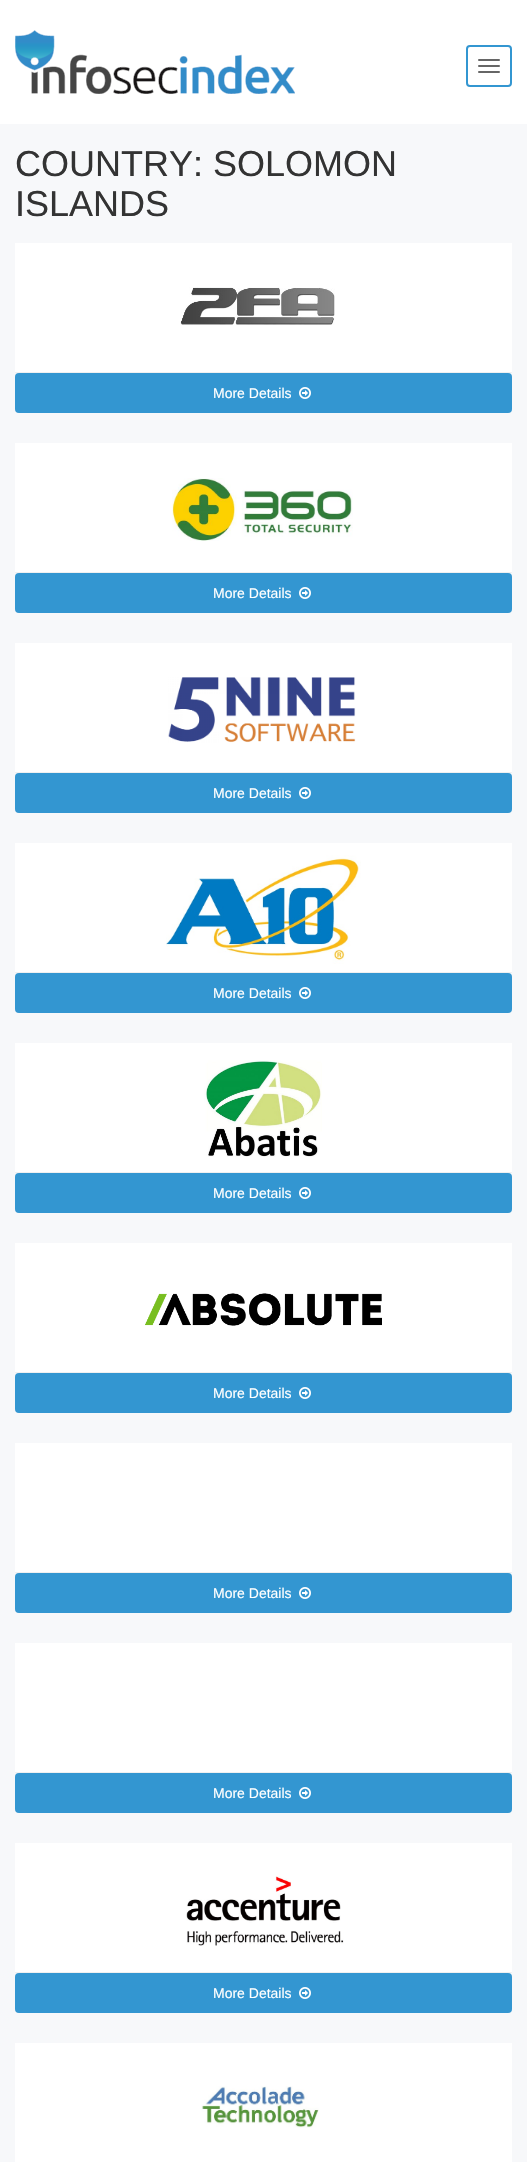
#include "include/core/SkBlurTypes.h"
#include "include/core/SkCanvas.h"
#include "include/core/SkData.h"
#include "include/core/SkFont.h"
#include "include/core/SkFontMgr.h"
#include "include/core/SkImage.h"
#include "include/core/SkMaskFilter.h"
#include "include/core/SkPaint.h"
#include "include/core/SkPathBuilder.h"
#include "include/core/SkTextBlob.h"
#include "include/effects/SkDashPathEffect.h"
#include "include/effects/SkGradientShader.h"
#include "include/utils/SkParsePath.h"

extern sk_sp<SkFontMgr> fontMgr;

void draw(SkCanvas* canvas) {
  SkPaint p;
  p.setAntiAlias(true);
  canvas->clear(SkColorSetRGB(247, 248, 250));
  p.setColor(SK_ColorWHITE);
  canvas->drawRect(SkRect::MakeLTRB(0, 0, 527, 124), p);
  canvas->drawImageRect(SkImages::DeferredFromEncodedData(SkData::MakeFromFileName("images/1.png")), SkRect::MakeLTRB(15, 30, 295, 94), SkSamplingOptions());
  p.setStyle(SkPaint::kStroke_Style);
  p.setStrokeWidth(2);
  p.setColor(SkColorSetRGB(51, 150, 209));
  canvas->drawRoundRect(SkRect::MakeLTRB(467, 46, 511, 86), 3, 3, p);
  p.setStyle(SkPaint::kFill_Style);
  p.setColor(SkColorSetRGB(102, 102, 102));
  canvas->drawRoundRect(SkRect::MakeLTRB(478, 59, 500, 61), 1, 1, p);
  canvas->drawRoundRect(SkRect::MakeLTRB(478, 65, 500, 67), 1, 1, p);
  canvas->drawRoundRect(SkRect::MakeLTRB(478, 71, 500, 73), 1, 1, p);
  p.setColor(SK_ColorWHITE);
  canvas->drawRect(SkRect::MakeLTRB(15, 243, 512, 372), p);
  p.setColor(SkColorSetRGB(240, 240, 240));
  canvas->drawRect(SkRect::MakeLTRB(15, 372, 512, 373), p);
  canvas->drawImageRect(SkImages::DeferredFromEncodedData(SkData::MakeFromFileName("images/2.png")), SkRect::MakeLTRB(180, 287, 335, 325), SkSamplingOptions());
  p.setColor(SkColorSetRGB(51, 150, 209));
  canvas->drawRoundRect(SkRect::MakeLTRB(15, 373, 512, 413), 4, 4, p);
  canvas->drawImageRect(SkImages::DeferredFromEncodedData(SkData::MakeFromFileName("images/3.png")), SkRect::MakeLTRB(299, 387, 311, 399), SkSamplingOptions());
  p.setColor(SK_ColorWHITE);
  canvas->drawRect(SkRect::MakeLTRB(15, 443, 512, 572), p);
  p.setColor(SkColorSetRGB(240, 240, 240));
  canvas->drawRect(SkRect::MakeLTRB(15, 572, 512, 573), p);
  canvas->drawImageRect(SkImages::DeferredFromEncodedData(SkData::MakeFromFileName("images/4.png")), SkRect::MakeLTRB(172, 478, 353, 541), SkSamplingOptions());
  p.setColor(SkColorSetRGB(51, 150, 209));
  canvas->drawRoundRect(SkRect::MakeLTRB(15, 573, 512, 613), 4, 4, p);
  canvas->drawImageRect(SkImages::DeferredFromEncodedData(SkData::MakeFromFileName("images/3.png")), SkRect::MakeLTRB(299, 587, 311, 599), SkSamplingOptions());
  p.setColor(SK_ColorWHITE);
  canvas->drawRect(SkRect::MakeLTRB(15, 643, 512, 772), p);
  p.setColor(SkColorSetRGB(240, 240, 240));
  canvas->drawRect(SkRect::MakeLTRB(15, 772, 512, 773), p);
  canvas->drawImageRect(SkImages::DeferredFromEncodedData(SkData::MakeFromFileName("images/5.png")), SkRect::MakeLTRB(168, 677, 356, 743), SkSamplingOptions());
  p.setColor(SkColorSetRGB(51, 150, 209));
  canvas->drawRoundRect(SkRect::MakeLTRB(15, 773, 512, 813), 4, 4, p);
  canvas->drawImageRect(SkImages::DeferredFromEncodedData(SkData::MakeFromFileName("images/3.png")), SkRect::MakeLTRB(299, 787, 311, 799), SkSamplingOptions());
  p.setColor(SK_ColorWHITE);
  canvas->drawRect(SkRect::MakeLTRB(15, 843, 512, 972), p);
  p.setColor(SkColorSetRGB(240, 240, 240));
  canvas->drawRect(SkRect::MakeLTRB(15, 972, 512, 973), p);
  canvas->drawImageRect(SkImages::DeferredFromEncodedData(SkData::MakeFromFileName("images/6.png")), SkRect::MakeLTRB(166, 855, 361, 964), SkSamplingOptions());
  p.setColor(SkColorSetRGB(51, 150, 209));
  canvas->drawRoundRect(SkRect::MakeLTRB(15, 973, 512, 1013), 4, 4, p);
  canvas->drawImageRect(SkImages::DeferredFromEncodedData(SkData::MakeFromFileName("images/3.png")), SkRect::MakeLTRB(299, 987, 311, 999), SkSamplingOptions());
  p.setColor(SK_ColorWHITE);
  canvas->drawRect(SkRect::MakeLTRB(15, 1043, 512, 1172), p);
  p.setColor(SkColorSetRGB(240, 240, 240));
  canvas->drawRect(SkRect::MakeLTRB(15, 1172, 512, 1173), p);
  canvas->drawImageRect(SkImages::DeferredFromEncodedData(SkData::MakeFromFileName("images/7.png")), SkRect::MakeLTRB(204, 1060, 322, 1157), SkSamplingOptions());
  p.setColor(SkColorSetRGB(51, 150, 209));
  canvas->drawRoundRect(SkRect::MakeLTRB(15, 1173, 512, 1213), 4, 4, p);
  canvas->drawImageRect(SkImages::DeferredFromEncodedData(SkData::MakeFromFileName("images/3.png")), SkRect::MakeLTRB(299, 1187, 311, 1199), SkSamplingOptions());
  p.setColor(SK_ColorWHITE);
  canvas->drawRect(SkRect::MakeLTRB(15, 1243, 512, 1372), p);
  p.setColor(SkColorSetRGB(240, 240, 240));
  canvas->drawRect(SkRect::MakeLTRB(15, 1372, 512, 1373), p);
  canvas->drawImageRect(SkImages::DeferredFromEncodedData(SkData::MakeFromFileName("images/8.png")), SkRect::MakeLTRB(145, 1293, 382, 1326), SkSamplingOptions());
  p.setColor(SkColorSetRGB(51, 150, 209));
  canvas->drawRoundRect(SkRect::MakeLTRB(15, 1373, 512, 1413), 4, 4, p);
  canvas->drawImageRect(SkImages::DeferredFromEncodedData(SkData::MakeFromFileName("images/3.png")), SkRect::MakeLTRB(299, 1387, 311, 1399), SkSamplingOptions());
  p.setColor(SK_ColorWHITE);
  canvas->drawRect(SkRect::MakeLTRB(15, 1443, 512, 1572), p);
  p.setColor(SkColorSetRGB(240, 240, 240));
  canvas->drawRect(SkRect::MakeLTRB(15, 1572, 512, 1573), p);
  p.setColor(SkColorSetRGB(51, 150, 209));
  canvas->drawRoundRect(SkRect::MakeLTRB(15, 1573, 512, 1613), 4, 4, p);
  canvas->drawImageRect(SkImages::DeferredFromEncodedData(SkData::MakeFromFileName("images/3.png")), SkRect::MakeLTRB(299, 1587, 311, 1599), SkSamplingOptions());
  p.setColor(SK_ColorWHITE);
  canvas->drawRect(SkRect::MakeLTRB(15, 1643, 512, 1772), p);
  p.setColor(SkColorSetRGB(240, 240, 240));
  canvas->drawRect(SkRect::MakeLTRB(15, 1772, 512, 1773), p);
  p.setColor(SkColorSetRGB(51, 150, 209));
  canvas->drawRoundRect(SkRect::MakeLTRB(15, 1773, 512, 1813), 4, 4, p);
  canvas->drawImageRect(SkImages::DeferredFromEncodedData(SkData::MakeFromFileName("images/3.png")), SkRect::MakeLTRB(299, 1787, 311, 1799), SkSamplingOptions());
  p.setColor(SK_ColorWHITE);
  canvas->drawRect(SkRect::MakeLTRB(15, 1843, 512, 1972), p);
  p.setColor(SkColorSetRGB(240, 240, 240));
  canvas->drawRect(SkRect::MakeLTRB(15, 1972, 512, 1973), p);
  canvas->drawImageRect(SkImages::DeferredFromEncodedData(SkData::MakeFromFileName("images/9.png")), SkRect::MakeLTRB(186, 1876, 344, 1946), SkSamplingOptions());
  p.setColor(SkColorSetRGB(51, 150, 209));
  canvas->drawRoundRect(SkRect::MakeLTRB(15, 1973, 512, 2013), 4, 4, p);
  canvas->drawImageRect(SkImages::DeferredFromEncodedData(SkData::MakeFromFileName("images/3.png")), SkRect::MakeLTRB(299, 1987, 311, 1999), SkSamplingOptions());
  p.setColor(SK_ColorWHITE);
  canvas->drawRect(SkRect::MakeLTRB(15, 2043, 512, 2162), p);
  canvas->drawImageRect(SkImages::DeferredFromEncodedData(SkData::MakeFromFileName("images/10.png")), SkRect::MakeLTRB(201, 2086, 319, 2128), SkSamplingOptions());
  SkFont font1(fontMgr->matchFamilyStyle("Liberation Sans", SkFontStyle::Normal()), 36);
  font1.setSubpixel(true);
  p.setColor(SkColorSetRGB(51, 51, 51));
  canvas->drawString("COUNTRY: SOLOMON", 15, 176, font1, p);
  canvas->drawString("ISLANDS", 15, 216, font1, p);
  SkFont font2(fontMgr->matchFamilyStyle("Liberation Sans", SkFontStyle::Normal()), 14);
  font2.setSubpixel(true);
  p.setColor(SK_ColorWHITE);
  canvas->drawString("More Details", 213, 398, font2, p);
  canvas->drawString("More Details", 213, 598, font2, p);
  canvas->drawString("More Details", 213, 798, font2, p);
  canvas->drawString("More Details", 213, 998, font2, p);
  canvas->drawString("More Details", 213, 1198, font2, p);
  canvas->drawString("More Details", 213, 1398, font2, p);
  canvas->drawString("More Details", 213, 1598, font2, p);
  canvas->drawString("More Details", 213, 1798, font2, p);
  canvas->drawString("More Details", 213, 1998, font2, p);
}
